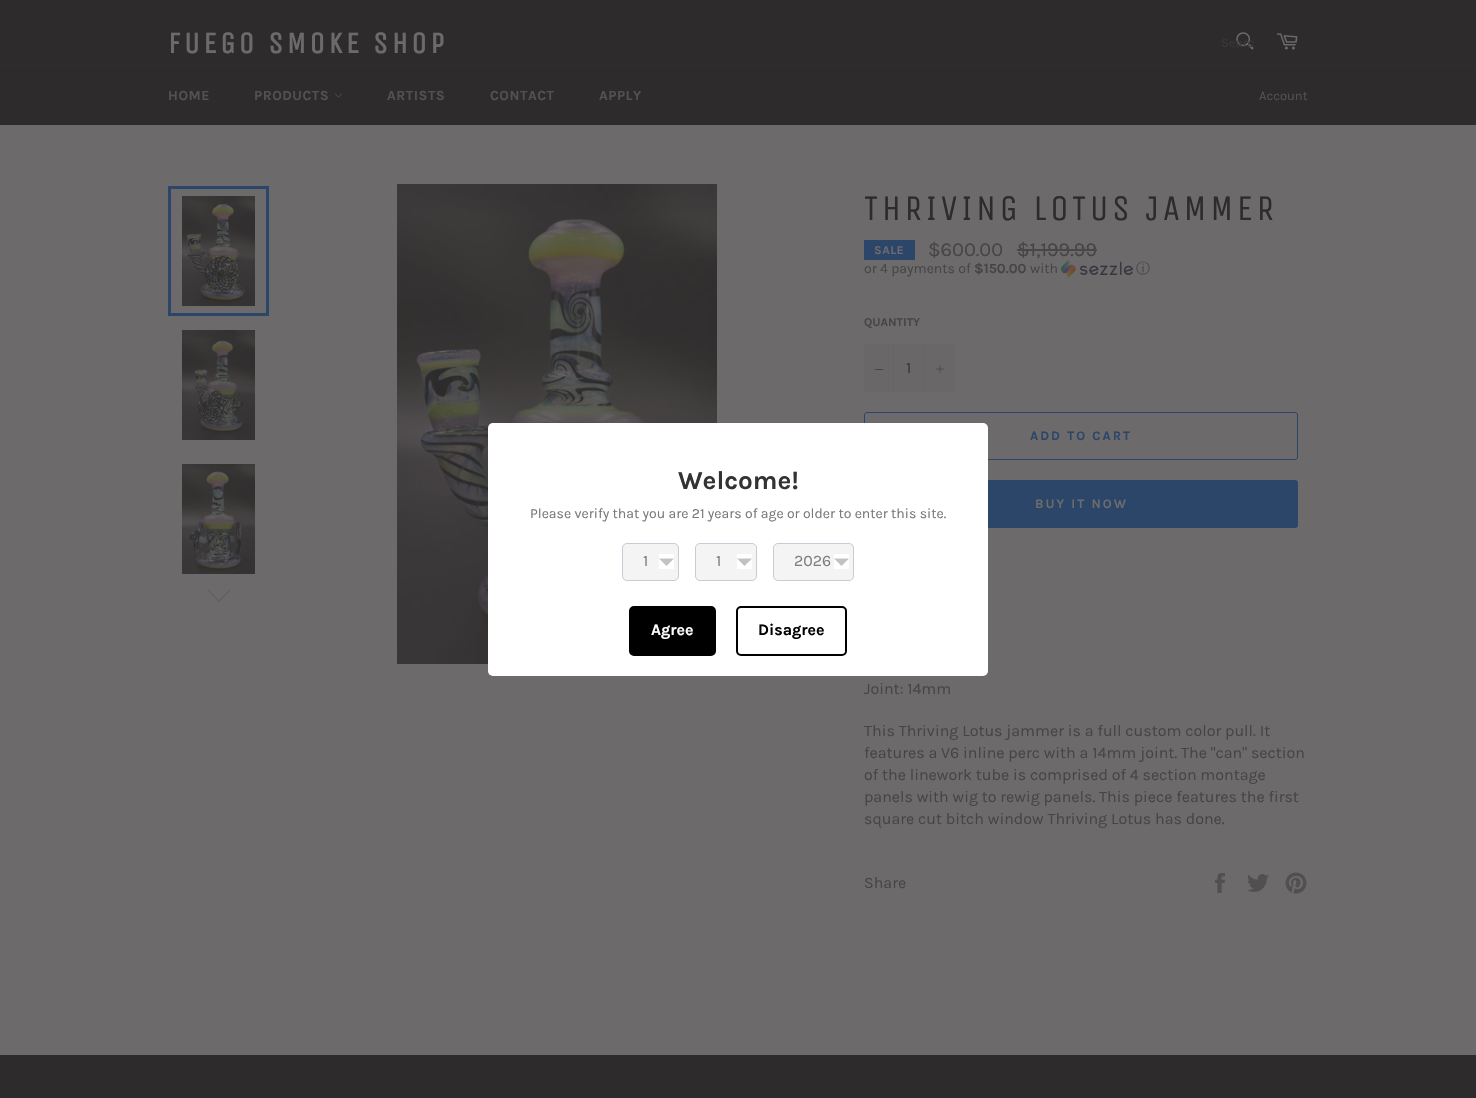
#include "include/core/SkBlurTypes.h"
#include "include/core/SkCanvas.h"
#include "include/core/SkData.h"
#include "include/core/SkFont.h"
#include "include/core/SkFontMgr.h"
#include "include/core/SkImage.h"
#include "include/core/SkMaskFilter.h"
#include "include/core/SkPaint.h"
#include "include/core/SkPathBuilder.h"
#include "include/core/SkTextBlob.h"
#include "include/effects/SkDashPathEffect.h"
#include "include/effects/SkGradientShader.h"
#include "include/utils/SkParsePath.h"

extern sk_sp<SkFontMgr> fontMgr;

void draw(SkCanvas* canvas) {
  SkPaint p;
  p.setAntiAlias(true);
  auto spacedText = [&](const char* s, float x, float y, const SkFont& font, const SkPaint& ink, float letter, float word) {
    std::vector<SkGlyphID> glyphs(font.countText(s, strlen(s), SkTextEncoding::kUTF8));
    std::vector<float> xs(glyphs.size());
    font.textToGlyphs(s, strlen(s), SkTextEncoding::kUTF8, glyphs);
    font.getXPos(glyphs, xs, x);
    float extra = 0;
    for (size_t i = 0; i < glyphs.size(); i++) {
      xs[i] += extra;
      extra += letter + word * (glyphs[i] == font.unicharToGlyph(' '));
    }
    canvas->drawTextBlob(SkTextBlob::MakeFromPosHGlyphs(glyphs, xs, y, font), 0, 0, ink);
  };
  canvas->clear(SkColorSetRGB(45, 43, 43));
  canvas->drawImageRect(SkImages::DeferredFromEncodedData(SkData::MakeFromFileName("images/1.png")), SkRect::MakeLTRB(1236, 32, 1254, 50), SkSamplingOptions());
  canvas->drawImageRect(SkImages::DeferredFromEncodedData(SkData::MakeFromFileName("images/2.png")), SkRect::MakeLTRB(1276, 33, 1298, 50), SkSamplingOptions());
  p.setColor(SkColorSetRGB(48, 46, 46));
  canvas->drawRect(SkRect::MakeLTRB(0, 65, 1476, 66), p);
  canvas->drawImageRect(SkImages::DeferredFromEncodedData(SkData::MakeFromFileName("images/3.png")), SkRect::MakeLTRB(335, 93, 342, 98), SkSamplingOptions());
  p.setColor(SkColorSetRGB(108, 106, 106));
  canvas->drawRect(SkRect::MakeLTRB(0, 125, 1476, 1055), p);
  canvas->drawImageRect(SkImages::DeferredFromEncodedData(SkData::MakeFromFileName("images/8.png")), SkRect::MakeLTRB(397, 184, 717, 664), SkSamplingOptions());
  p.setStyle(SkPaint::kStroke_Style);
  p.setStrokeWidth(1);
  p.setColor(SkColorSetRGB(44, 70, 106));
  canvas->drawRoundRect(SkRect::MakeLTRB(864.5f, 412.5f, 1297.5f, 459.5f), 2.5f, 2.5f, p);
  p.setStyle(SkPaint::kFill_Style);
  canvas->drawRoundRect(SkRect::MakeLTRB(864, 480, 1298, 528), 3, 3, p);
  p.setColor(SK_ColorWHITE);
  canvas->drawRoundRect(SkRect::MakeLTRB(488, 423, 988, 676), 5, 5, p);
  p.setColor(SkColorSetRGB(244, 244, 244));
  canvas->drawRoundRect(SkRect::MakeLTRB(622, 543, 679, 581), 5, 5, p);
  canvas->drawImageRect(SkImages::DeferredFromEncodedData(SkData::MakeFromFileName("images/4.png")), SkRect::MakeLTRB(659, 554, 674, 569), SkSamplingOptions());
  p.setStyle(SkPaint::kStroke_Style);
  p.setColor(SkColorSetRGB(196, 205, 213));
  canvas->drawRoundRect(SkRect::MakeLTRB(622.5f, 543.5f, 678.5f, 580.5f), 4.5f, 4.5f, p);
  p.setStyle(SkPaint::kFill_Style);
  p.setColor(SkColorSetRGB(244, 244, 244));
  canvas->drawRoundRect(SkRect::MakeLTRB(695, 543, 757, 581), 5, 5, p);
  canvas->drawImageRect(SkImages::DeferredFromEncodedData(SkData::MakeFromFileName("images/4.png")), SkRect::MakeLTRB(737, 554, 752, 569), SkSamplingOptions());
  p.setStyle(SkPaint::kStroke_Style);
  p.setColor(SkColorSetRGB(196, 205, 213));
  canvas->drawRoundRect(SkRect::MakeLTRB(695.5f, 543.5f, 756.5f, 580.5f), 4.5f, 4.5f, p);
  p.setStyle(SkPaint::kFill_Style);
  p.setColor(SkColorSetRGB(244, 244, 244));
  canvas->drawRoundRect(SkRect::MakeLTRB(773, 543, 854, 581), 5, 5, p);
  canvas->drawImageRect(SkImages::DeferredFromEncodedData(SkData::MakeFromFileName("images/4.png")), SkRect::MakeLTRB(834, 554, 849, 569), SkSamplingOptions());
  p.setStyle(SkPaint::kStroke_Style);
  p.setColor(SkColorSetRGB(196, 205, 213));
  canvas->drawRoundRect(SkRect::MakeLTRB(773.5f, 543.5f, 853.5f, 580.5f), 4.5f, 4.5f, p);
  p.setStyle(SkPaint::kFill_Style);
  p.setColor(SK_ColorBLACK);
  canvas->drawRoundRect(SkRect::MakeLTRB(630, 607, 715, 655), 4, 4, p);
  p.setStyle(SkPaint::kStroke_Style);
  p.setStrokeWidth(2);
  canvas->drawRoundRect(SkRect::MakeLTRB(630, 607, 715, 655), 4, 4, p);
  canvas->drawRoundRect(SkRect::MakeLTRB(737, 607, 846, 655), 4, 4, p);
  canvas->drawImageRect(SkImages::DeferredFromEncodedData(SkData::MakeFromFileName("images/5.png")), SkRect::MakeLTRB(182, 196, 255, 306), SkSamplingOptions());
  p.setStrokeWidth(3);
  p.setColor(SkColorSetRGB(44, 70, 106));
  canvas->drawRect(SkRect::MakeLTRB(169.5f, 187.5f, 267.5f, 314.5f), p);
  canvas->drawImageRect(SkImages::DeferredFromEncodedData(SkData::MakeFromFileName("images/6.png")), SkRect::MakeLTRB(182, 330, 255, 440), SkSamplingOptions());
  canvas->drawImageRect(SkImages::DeferredFromEncodedData(SkData::MakeFromFileName("images/7.png")), SkRect::MakeLTRB(182, 464, 255, 574), SkSamplingOptions());
  p.setStyle(SkPaint::kFill_Style);
  p.setColor(SkColorSetRGB(100, 98, 98));
  canvas->drawPath(SkPathBuilder().moveTo(229.5f, 589).lineTo(230.5f, 590.5f).lineTo(219, 603).lineTo(207.5f, 590.5f).lineTo(208.5f, 589).lineTo(219, 600).close().detach(), p);
  p.setColor(SkColorSetRGB(44, 70, 106));
  canvas->drawRect(SkRect::MakeLTRB(864, 240, 915, 260), p);
  canvas->drawImageRect(SkImages::DeferredFromEncodedData(SkData::MakeFromFileName("images/9.png")), SkRect::MakeLTRB(1061, 260, 1133, 278), SkSamplingOptions());
  p.setColor(SkColorSetRGB(105, 103, 103));
  canvas->drawRect(SkRect::MakeLTRB(864, 344, 954, 392), p);
  p.setColor(SkColorSetRGB(102, 100, 100));
  canvas->drawRect(SkRect::MakeLTRB(893, 344, 894, 392), p);
  p.setColor(SkColorSetRGB(70, 68, 68));
  canvas->drawRect(SkRect::MakeLTRB(875, 369, 883, 370), p);
  p.setColor(SkColorSetRGB(102, 100, 100));
  canvas->drawRect(SkRect::MakeLTRB(924, 344, 925, 392), p);
  canvas->drawImageRect(SkImages::DeferredFromEncodedData(SkData::MakeFromFileName("images/10.png")), SkRect::MakeLTRB(936, 365, 944, 373), SkSamplingOptions());
  canvas->drawImageRect(SkImages::DeferredFromEncodedData(SkData::MakeFromFileName("images/11.png")), SkRect::MakeLTRB(1215, 873, 1225, 893), SkSamplingOptions());
  canvas->drawImageRect(SkImages::DeferredFromEncodedData(SkData::MakeFromFileName("images/12.png")), SkRect::MakeLTRB(1247, 874, 1269, 892), SkSamplingOptions());
  canvas->drawImageRect(SkImages::DeferredFromEncodedData(SkData::MakeFromFileName("images/13.png")), SkRect::MakeLTRB(1285, 872, 1307, 894), SkSamplingOptions());
  SkFont font1(fontMgr->matchFamilyStyle("Unica One", SkFontStyle::Bold()), 30);
  font1.setSubpixel(true);
  p.setColor(SkColorSetRGB(108, 106, 106));
  spacedText("FUEGO SMOKE SHOP", 168, 53, font1, p, 3.6f, 0);
  SkFont font2(fontMgr->matchFamilyStyle("Karla", SkFontStyle::Normal()), 13);
  font2.setSubpixel(true);
  p.setColor(SkColorSetRGB(57, 55, 55));
  canvas->drawString("Searc", 1221, 47, font2, p);
  SkFont font3(fontMgr->matchFamilyStyle("Karla", SkFontStyle::Bold()), 14);
  font3.setSubpixel(true);
  p.setColor(SkColorSetRGB(83, 81, 81));
  spacedText("HOME", 168, 100, font3, p, 0.5f, 0);
  spacedText("PRODUCTS", 254, 100, font3, p, 0.5f, 0);
  spacedText("ARTISTS", 387, 100, font3, p, 0.5f, 0);
  spacedText("CONTACT", 490, 100, font3, p, 0.5f, 0);
  spacedText("APPLY", 599, 100, font3, p, 0.5f, 0);
  canvas->drawString("Account", 1259, 100, font2, p);
  SkFont font4(fontMgr->matchFamilyStyle("Karla", SkFontStyle::Bold()), 26);
  font4.setSubpixel(true);
  p.setColor(SkColorSetRGB(51, 51, 51));
  canvas->drawString("Welcome!", 678, 489, font4, p);
  SkFont font5(fontMgr->matchFamilyStyle("Karla", SkFontStyle::Normal()), 14);
  font5.setSubpixel(true);
  p.setColor(SkColorSetRGB(120, 120, 120));
  canvas->drawString("Please verify that you are 21 years of age or older to enter this site.", 530, 518, font5, p);
  SkFont font6(fontMgr->matchFamilyStyle("Karla", SkFontStyle::Normal()), 16);
  font6.setSubpixel(true);
  p.setColor(SkColorSetRGB(126, 126, 126));
  canvas->drawString("1", 643, 566, font6, p);
  canvas->drawString("1", 716, 566, font6, p);
  canvas->drawString("2026", 794, 566, font6, p);
  SkFont font7(fontMgr->matchFamilyStyle("Karla", SkFontStyle::Bold()), 16);
  font7.setSubpixel(true);
  p.setColor(SK_ColorWHITE);
  canvas->drawString("Agree", 651, 635, font7, p);
  p.setColor(SK_ColorBLACK);
  canvas->drawString("Disagree", 758, 635, font7, p);
  SkFont font8(fontMgr->matchFamilyStyle("Unica One", SkFontStyle::Normal()), 36);
  font8.setSubpixel(true);
  p.setColor(SkColorSetRGB(45, 43, 43));
  spacedText("THRIVING LOTUS JAMMER", 864, 220, font8, p, 3.6f, 0);
  SkFont font9(fontMgr->matchFamilyStyle("Karla", SkFontStyle::Bold()), 12);
  font9.setSubpixel(true);
  p.setColor(SkColorSetRGB(108, 106, 106));
  spacedText("SALE", 874, 254, font9, p, 0.5f, 0);
  SkFont font10(fontMgr->matchFamilyStyle("Karla", SkFontStyle::Normal()), 20);
  font10.setSubpixel(true);
  p.setColor(SkColorSetRGB(70, 68, 68));
  canvas->drawString("$600.00", 928, 256, font10, p);
  canvas->drawString("$1,199.99", 1017, 256, font10, p);
  p.setColor(SkColorSetRGB(73, 71, 71));
  canvas->drawRect(SkRect::MakeLTRB(1017, 249, 1097, 251), p);
  p.setColor(SkColorSetRGB(70, 68, 68));
  canvas->drawString("or 4 payments of", 864, 273, font5, p);
  canvas->drawString("$150.00", 974, 273, font3, p);
  canvas->drawString("with", 1030, 273, font5, p);
  SkFont font11(fontMgr->matchFamilyStyle("WenQuanYi Zen Hei", SkFontStyle(500, SkFontStyle::kNormal_Width, SkFontStyle::kUpright_Slant)), 14);
  font11.setSubpixel(true);
  canvas->drawString("ⓘ", 1136, 273, font11, p);
  canvas->drawString("QUANTITY", 864, 326, font9, p);
  p.setColor(SkColorSetRGB(57, 55, 55));
  canvas->drawString("1", 906, 373, font6, p);
  SkFont font12(fontMgr->matchFamilyStyle("Karla", SkFontStyle::Bold()), 13);
  font12.setSubpixel(true);
  p.setColor(SkColorSetRGB(44, 70, 106));
  spacedText("ADD TO CART", 1030, 440, font12, p, 2, 0);
  p.setColor(SkColorSetRGB(108, 106, 106));
  spacedText("BUY IT NOW", 1035, 508, font12, p, 2, 0);
  p.setColor(SkColorSetRGB(70, 68, 68));
  canvas->drawString("Joint: 14mm", 864, 694, font6, p);
  canvas->drawString("This Thriving Lotus jammer is a full custom color pull. It", 864, 736, font6, p);
  canvas->drawString("features a V6 inline perc with a 14mm joint. The \"can\" section", 864, 758, font6, p);
  canvas->drawString("of the linework tube is comprised of 4 section montage", 864, 780, font6, p);
  canvas->drawString("panels with wig to rewig panels. This piece features the first", 864, 802, font6, p);
  canvas->drawString("square cut bitch window Thriving Lotus has done.", 864, 824, font6, p);
  canvas->drawString("Share", 864, 888, font6, p);
}
